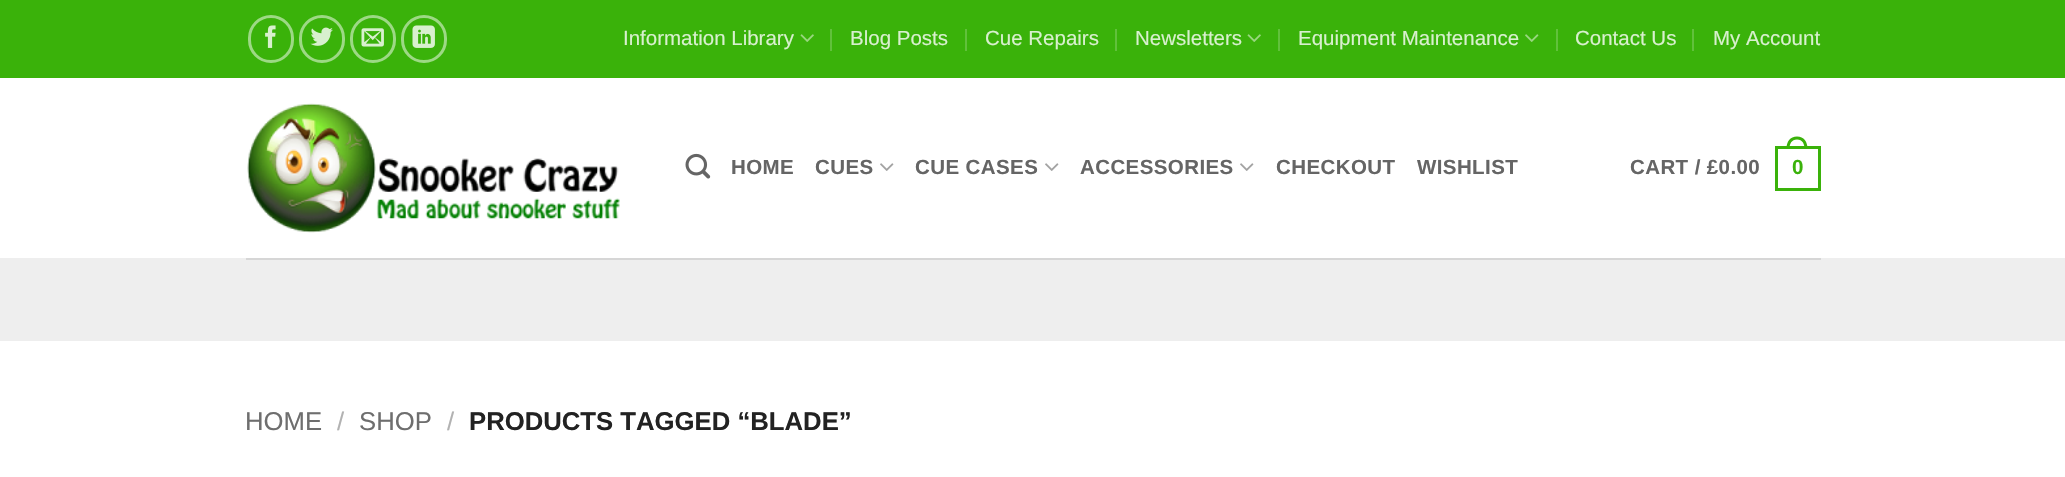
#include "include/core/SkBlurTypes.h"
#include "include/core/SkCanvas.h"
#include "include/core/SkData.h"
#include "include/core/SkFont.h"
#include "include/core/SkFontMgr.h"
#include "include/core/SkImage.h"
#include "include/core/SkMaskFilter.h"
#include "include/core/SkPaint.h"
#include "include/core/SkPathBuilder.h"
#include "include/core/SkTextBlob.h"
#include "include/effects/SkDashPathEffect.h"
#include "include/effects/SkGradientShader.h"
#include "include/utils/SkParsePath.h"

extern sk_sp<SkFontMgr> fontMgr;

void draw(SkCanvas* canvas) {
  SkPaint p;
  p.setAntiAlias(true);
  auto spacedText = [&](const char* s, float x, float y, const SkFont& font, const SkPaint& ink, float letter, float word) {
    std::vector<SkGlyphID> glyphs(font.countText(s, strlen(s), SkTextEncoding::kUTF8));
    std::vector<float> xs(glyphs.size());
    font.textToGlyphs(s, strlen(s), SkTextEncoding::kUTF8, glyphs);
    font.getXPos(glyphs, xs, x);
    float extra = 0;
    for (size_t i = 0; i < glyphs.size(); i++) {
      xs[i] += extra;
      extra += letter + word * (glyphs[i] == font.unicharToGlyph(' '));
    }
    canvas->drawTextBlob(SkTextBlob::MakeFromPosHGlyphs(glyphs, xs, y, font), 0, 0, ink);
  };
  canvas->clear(SK_ColorWHITE);
  p.setColor(SkColorSetRGB(58, 178, 10));
  canvas->drawRect(SkRect::MakeLTRB(0, 0, 2065, 78), p);
  p.setStyle(SkPaint::kStroke_Style);
  p.setStrokeWidth(3);
  p.setColor(SkColorSetRGB(157, 217, 133));
  canvas->drawRoundRect(SkRect::MakeLTRB(249.5f, 16.5f, 292.5f, 61.5f), 21.5f, 21.5f, p);
  canvas->drawImageRect(SkImages::DeferredFromEncodedData(SkData::MakeFromFileName("images/1.png")), SkRect::MakeLTRB(265, 25, 276, 48), SkSamplingOptions());
  canvas->drawRoundRect(SkRect::MakeLTRB(300.5f, 16.5f, 343.5f, 61.5f), 21.5f, 21.5f, p);
  canvas->drawImageRect(SkImages::DeferredFromEncodedData(SkData::MakeFromFileName("images/2.png")), SkRect::MakeLTRB(310, 27, 333, 46), SkSamplingOptions());
  canvas->drawRoundRect(SkRect::MakeLTRB(351.5f, 16.5f, 394.5f, 61.5f), 21.5f, 21.5f, p);
  canvas->drawImageRect(SkImages::DeferredFromEncodedData(SkData::MakeFromFileName("images/3.png")), SkRect::MakeLTRB(361, 28, 384, 47), SkSamplingOptions());
  canvas->drawRoundRect(SkRect::MakeLTRB(402.5f, 16.5f, 445.5f, 61.5f), 21.5f, 21.5f, p);
  canvas->drawImageRect(SkImages::DeferredFromEncodedData(SkData::MakeFromFileName("images/4.png")), SkRect::MakeLTRB(412, 25, 435, 48), SkSamplingOptions());
  canvas->drawImageRect(SkImages::DeferredFromEncodedData(SkData::MakeFromFileName("images/5.png")), SkRect::MakeLTRB(800, 34, 814, 42), SkSamplingOptions());
  p.setStyle(SkPaint::kFill_Style);
  p.setColor(SkColorSetRGB(97, 193, 59));
  canvas->drawRect(SkRect::MakeLTRB(830, 29, 832, 51), p);
  canvas->drawRect(SkRect::MakeLTRB(965, 29, 967, 51), p);
  canvas->drawRect(SkRect::MakeLTRB(1115, 29, 1117, 51), p);
  canvas->drawImageRect(SkImages::DeferredFromEncodedData(SkData::MakeFromFileName("images/5.png")), SkRect::MakeLTRB(1247, 34, 1261, 42), SkSamplingOptions());
  canvas->drawRect(SkRect::MakeLTRB(1278, 29, 1280, 51), p);
  canvas->drawImageRect(SkImages::DeferredFromEncodedData(SkData::MakeFromFileName("images/6.png")), SkRect::MakeLTRB(1525, 34, 1539, 42), SkSamplingOptions());
  canvas->drawRect(SkRect::MakeLTRB(1556, 29, 1558, 51), p);
  canvas->drawRect(SkRect::MakeLTRB(1692, 29, 1694, 51), p);
  canvas->drawImageRect(SkImages::DeferredFromEncodedData(SkData::MakeFromFileName("images/7.png")), SkRect::MakeLTRB(247, 103, 620, 233), SkSamplingOptions());
  canvas->drawImageRect(SkImages::DeferredFromEncodedData(SkData::MakeFromFileName("images/8.png")), SkRect::MakeLTRB(685, 153, 711, 179), SkSamplingOptions());
  canvas->drawImageRect(SkImages::DeferredFromEncodedData(SkData::MakeFromFileName("images/9.png")), SkRect::MakeLTRB(880, 163, 894, 171), SkSamplingOptions());
  canvas->drawImageRect(SkImages::DeferredFromEncodedData(SkData::MakeFromFileName("images/9.png")), SkRect::MakeLTRB(1045, 163, 1059, 171), SkSamplingOptions());
  canvas->drawImageRect(SkImages::DeferredFromEncodedData(SkData::MakeFromFileName("images/9.png")), SkRect::MakeLTRB(1240, 163, 1254, 171), SkSamplingOptions());
  p.setStyle(SkPaint::kStroke_Style);
  p.setColor(SkColorSetRGB(58, 178, 10));
  canvas->drawRect(SkRect::MakeLTRB(1776.5f, 147.5f, 1819.5f, 189.5f), p);
  p.setStyle(SkPaint::kFill_Style);
  canvas->drawPath(SkPathBuilder(SkPathFillType::kEvenOdd).moveTo(1797, 136.5f).cubicTo(1804, 136.5f, 1807.5f, 142, 1807.5f, 148.5f).lineTo(1786.5f, 148.5f).cubicTo(1786.5f, 142, 1790, 136.5f, 1797, 136.5f).close().moveTo(1797, 139.5f).cubicTo(1802.5f, 139.5f, 1804.5f, 144, 1804.5f, 148.5f).lineTo(1789.5f, 148.5f).cubicTo(1789.5f, 144, 1791.5f, 139.5f, 1797, 139.5f).close().detach(), p);
  p.setColor(SkColorSetRGB(238, 238, 238));
  canvas->drawRect(SkRect::MakeLTRB(0, 258, 2065, 341), p);
  p.setColor(SkColorSetRGB(214, 214, 214));
  canvas->drawRect(SkRect::MakeLTRB(246, 258, 1821, 260), p);
  SkFont font1(fontMgr->matchFamilyStyle("Liberation Sans", SkFontStyle::Normal()), 20.5f);
  font1.setSubpixel(true);
  p.setColor(SkColorSetRGB(216, 240, 206));
  canvas->drawString("Information Library", 623, 45, font1, p);
  canvas->drawString("Blog Posts", 850, 45, font1, p);
  canvas->drawString("Cue Repairs", 985, 45, font1, p);
  canvas->drawString("Newsletters", 1135, 45, font1, p);
  canvas->drawString("Equipment Maintenance", 1298, 45, font1, p);
  canvas->drawString("Contact Us", 1575, 45, font1, p);
  canvas->drawString("My Account", 1713, 45, font1, p);
  SkFont font2(fontMgr->matchFamilyStyle("Liberation Sans", SkFontStyle::Bold()), 20.5f);
  font2.setSubpixel(true);
  p.setColor(SkColorSetRGB(101, 101, 101));
  spacedText("HOME", 731, 174, font2, p, 0.4f, 0);
  spacedText("CUES", 815, 174, font2, p, 0.4f, 0);
  spacedText("CUE CASES", 915, 174, font2, p, 0.4f, 0);
  spacedText("ACCESSORIES", 1080, 174, font2, p, 0.4f, 0);
  spacedText("CHECKOUT", 1276, 174, font2, p, 0.4f, 0);
  spacedText("WISHLIST", 1417, 174, font2, p, 0.4f, 0);
  spacedText("CART / £0.00", 1630, 174, font2, p, 0.4f, 0);
  p.setColor(SkColorSetRGB(58, 178, 10));
  spacedText("0", 1792, 174, font2, p, 0.4f, 0);
  SkFont font3(fontMgr->matchFamilyStyle("Liberation Sans", SkFontStyle::Normal()), 25.7f);
  font3.setSubpixel(true);
  p.setColor(SkColorSetRGB(110, 110, 110));
  canvas->drawString("HOME", 245, 430, font3, p);
  p.setColor(SkColorSetRGB(178, 178, 178));
  canvas->drawString("/", 337, 430, font3, p);
  p.setColor(SkColorSetRGB(110, 110, 110));
  canvas->drawString("SHOP", 359, 430, font3, p);
  p.setColor(SkColorSetRGB(178, 178, 178));
  canvas->drawString("/", 447, 430, font3, p);
  SkFont font4(fontMgr->matchFamilyStyle("Liberation Sans", SkFontStyle::Bold()), 25.7f);
  font4.setSubpixel(true);
  p.setColor(SkColorSetRGB(34, 34, 34));
  canvas->drawString("PRODUCTS TAGGED “BLADE”", 469, 430, font4, p);
}
